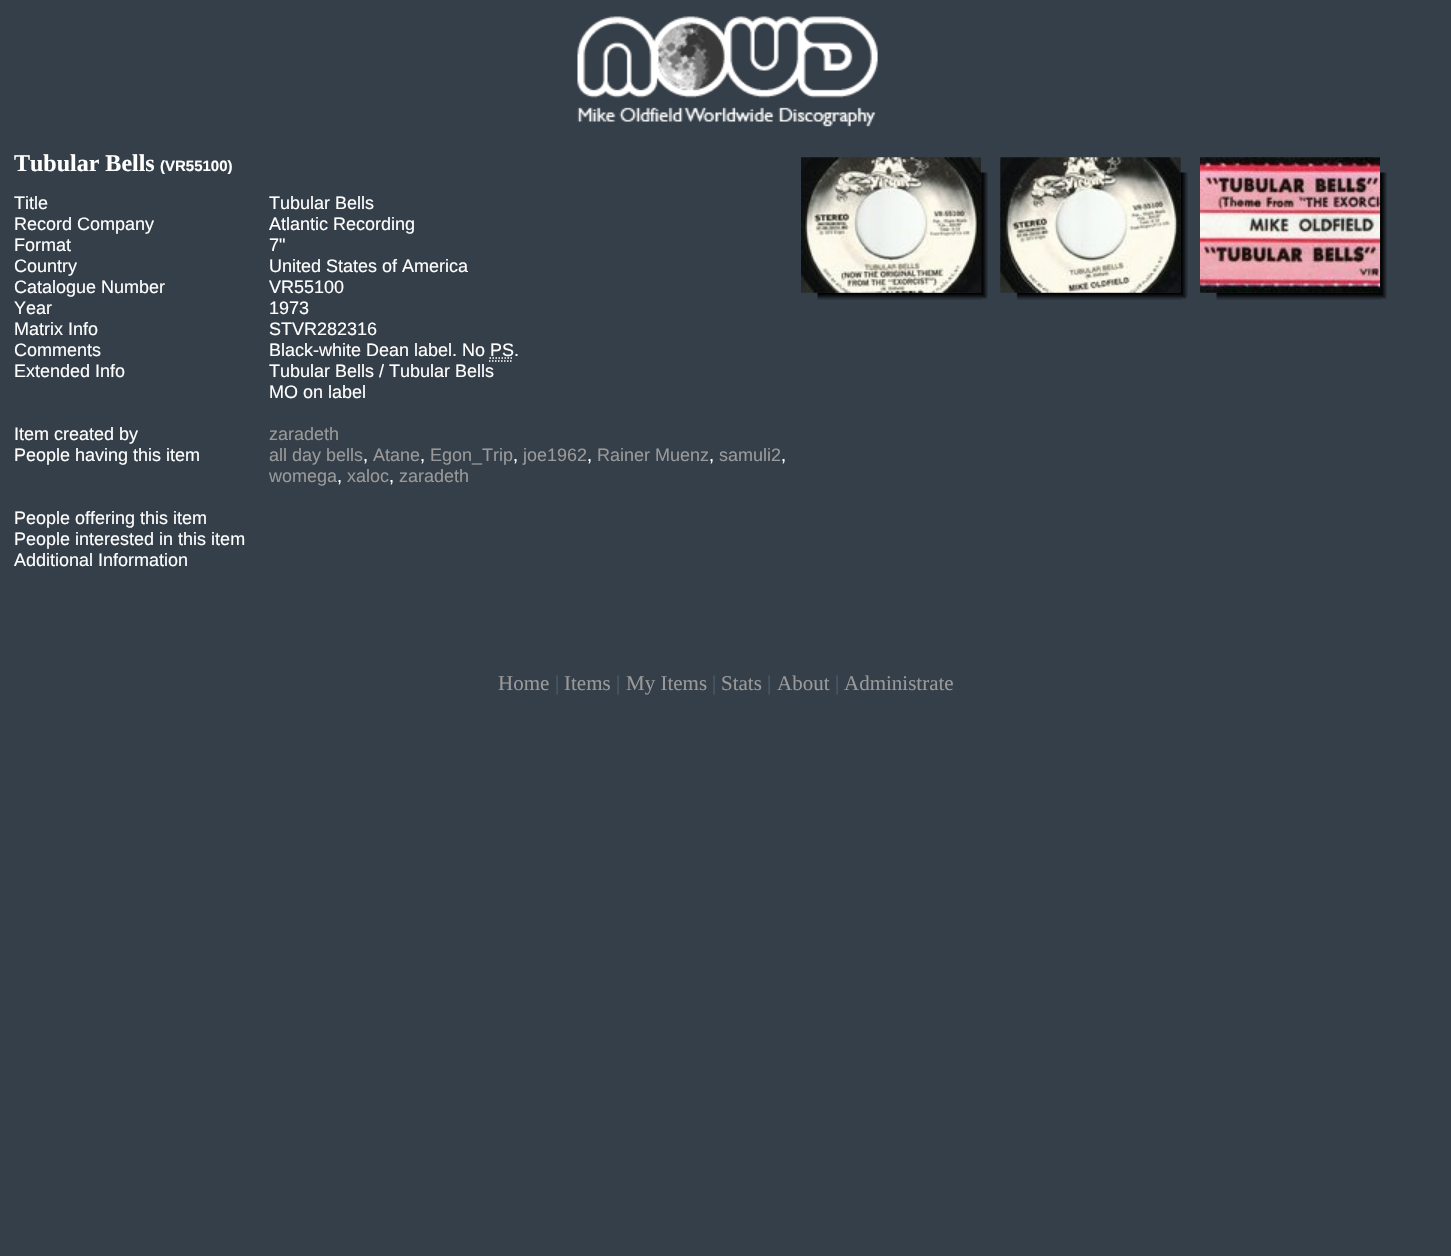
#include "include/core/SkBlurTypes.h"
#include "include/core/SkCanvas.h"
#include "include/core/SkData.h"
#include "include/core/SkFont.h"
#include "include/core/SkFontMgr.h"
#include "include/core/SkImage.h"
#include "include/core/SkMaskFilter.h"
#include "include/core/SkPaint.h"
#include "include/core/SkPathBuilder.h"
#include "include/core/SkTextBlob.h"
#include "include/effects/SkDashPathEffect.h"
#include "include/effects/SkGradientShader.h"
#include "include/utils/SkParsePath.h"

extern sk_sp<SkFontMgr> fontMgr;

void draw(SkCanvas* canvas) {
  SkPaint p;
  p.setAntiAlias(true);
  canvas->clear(SkColorSetRGB(53, 63, 73));
  canvas->drawImageRect(SkImages::DeferredFromEncodedData(SkData::MakeFromFileName("images/1.png")), SkRect::MakeLTRB(577, 16, 878, 127), SkSamplingOptions());
  canvas->drawImageRect(SkImages::DeferredFromEncodedData(SkData::MakeFromFileName("images/2.png")), SkRect::MakeLTRB(801, 157, 988, 300), SkSamplingOptions());
  canvas->drawImageRect(SkImages::DeferredFromEncodedData(SkData::MakeFromFileName("images/3.png")), SkRect::MakeLTRB(801, 157, 981, 293), SkSamplingOptions());
  canvas->drawImageRect(SkImages::DeferredFromEncodedData(SkData::MakeFromFileName("images/4.png")), SkRect::MakeLTRB(1000, 157, 1188, 300), SkSamplingOptions());
  canvas->drawImageRect(SkImages::DeferredFromEncodedData(SkData::MakeFromFileName("images/5.png")), SkRect::MakeLTRB(1000, 157, 1181, 293), SkSamplingOptions());
  canvas->drawImageRect(SkImages::DeferredFromEncodedData(SkData::MakeFromFileName("images/6.png")), SkRect::MakeLTRB(1200, 157, 1387, 300), SkSamplingOptions());
  canvas->drawImageRect(SkImages::DeferredFromEncodedData(SkData::MakeFromFileName("images/7.png")), SkRect::MakeLTRB(1200, 157, 1380, 293), SkSamplingOptions());
  p.setStyle(SkPaint::kStroke_Style);
  p.setStrokeWidth(1.5f);
  p.setColor(SK_ColorWHITE);
  p.setPathEffect(SkDashPathEffect::Make({{1.5f, 1.5f}}, 0));
  canvas->drawPath(SkPathBuilder().moveTo(489, 361).lineTo(513, 361).moveTo(489.5f, 358).lineTo(513.5f, 358).detach(), p);
  p.setPathEffect(nullptr);
  SkFont font1(fontMgr->matchFamilyStyle("Liberation Serif", SkFontStyle::Bold()), 24);
  font1.setSubpixel(true);
  p.setStyle(SkPaint::kFill_Style);
  canvas->drawString("Tubular Bells", 14, 171, font1, p);
  SkFont font2(fontMgr->matchFamilyStyle("Liberation Sans", SkFontStyle::Bold()), 15);
  font2.setSubpixel(true);
  canvas->drawString("(VR55100)", 160, 171, font2, p);
  SkFont font3(fontMgr->matchFamilyStyle("Liberation Sans", SkFontStyle::Normal()), 18);
  font3.setSubpixel(true);
  canvas->drawString("Title", 14, 209, font3, p);
  canvas->drawString("Tubular Bells", 269, 209, font3, p);
  canvas->drawString("Record Company", 14, 230, font3, p);
  canvas->drawString("Atlantic Recording", 269, 230, font3, p);
  canvas->drawString("Format", 14, 251, font3, p);
  canvas->drawString("7\"", 269, 251, font3, p);
  canvas->drawString("Country", 14, 272, font3, p);
  canvas->drawString("United States of America", 269, 272, font3, p);
  canvas->drawString("Catalogue Number", 14, 293, font3, p);
  canvas->drawString("VR55100", 269, 293, font3, p);
  canvas->drawString("Year", 14, 314, font3, p);
  canvas->drawString("1973", 269, 314, font3, p);
  canvas->drawString("Matrix Info", 14, 335, font3, p);
  canvas->drawString("STVR282316", 269, 335, font3, p);
  canvas->drawString("Comments", 14, 356, font3, p);
  canvas->drawString("Black-white Dean label. No PS.", 269, 356, font3, p);
  canvas->drawString("Extended Info", 14, 377, font3, p);
  canvas->drawString("Tubular Bells / Tubular Bells", 269, 377, font3, p);
  canvas->drawString("MO on label", 269, 398, font3, p);
  canvas->drawString("Item created by", 14, 440, font3, p);
  p.setColor(SkColorSetRGB(153, 153, 153));
  canvas->drawString("zaradeth", 269, 440, font3, p);
  p.setColor(SK_ColorWHITE);
  canvas->drawString("People having this item", 14, 461, font3, p);
  p.setColor(SkColorSetRGB(153, 153, 153));
  canvas->drawString("all day bells", 269, 461, font3, p);
  p.setColor(SK_ColorWHITE);
  canvas->drawString(",", 363, 461, font3, p);
  p.setColor(SkColorSetRGB(153, 153, 153));
  canvas->drawString("Atane", 373, 461, font3, p);
  p.setColor(SK_ColorWHITE);
  canvas->drawString(",", 420, 461, font3, p);
  p.setColor(SkColorSetRGB(153, 153, 153));
  canvas->drawString("Egon_Trip", 430, 461, font3, p);
  p.setColor(SK_ColorWHITE);
  canvas->drawString(",", 513, 461, font3, p);
  p.setColor(SkColorSetRGB(153, 153, 153));
  canvas->drawString("joe1962", 523, 461, font3, p);
  p.setColor(SK_ColorWHITE);
  canvas->drawString(",", 587, 461, font3, p);
  p.setColor(SkColorSetRGB(153, 153, 153));
  canvas->drawString("Rainer Muenz", 597, 461, font3, p);
  p.setColor(SK_ColorWHITE);
  canvas->drawString(",", 709, 461, font3, p);
  p.setColor(SkColorSetRGB(153, 153, 153));
  canvas->drawString("samuli2", 719, 461, font3, p);
  p.setColor(SK_ColorWHITE);
  canvas->drawString(",", 781, 461, font3, p);
  p.setColor(SkColorSetRGB(153, 153, 153));
  canvas->drawString("womega", 269, 482, font3, p);
  p.setColor(SK_ColorWHITE);
  canvas->drawString(",", 337, 482, font3, p);
  p.setColor(SkColorSetRGB(153, 153, 153));
  canvas->drawString("xaloc", 347, 482, font3, p);
  p.setColor(SK_ColorWHITE);
  canvas->drawString(",", 389, 482, font3, p);
  p.setColor(SkColorSetRGB(153, 153, 153));
  canvas->drawString("zaradeth", 399, 482, font3, p);
  p.setColor(SK_ColorWHITE);
  canvas->drawString("People offering this item", 14, 524, font3, p);
  canvas->drawString("People interested in this item", 14, 545, font3, p);
  canvas->drawString("Additional Information", 14, 566, font3, p);
  SkFont font4(fontMgr->matchFamilyStyle("Liberation Serif", SkFontStyle::Normal()), 21);
  font4.setSubpixel(true);
  p.setColor(SkColorSetRGB(153, 153, 153));
  canvas->drawString("Home", 498, 690, font4, p);
  p.setColor(SkColorSetRGB(76, 93, 110));
  canvas->drawString("|", 555, 690, font4, p);
  p.setColor(SkColorSetRGB(153, 153, 153));
  canvas->drawString("Items", 564, 690, font4, p);
  p.setColor(SkColorSetRGB(76, 93, 110));
  canvas->drawString("|", 616, 690, font4, p);
  p.setColor(SkColorSetRGB(153, 153, 153));
  canvas->drawString("My Items", 626, 690, font4, p);
  p.setColor(SkColorSetRGB(76, 93, 110));
  canvas->drawString("|", 712, 690, font4, p);
  p.setColor(SkColorSetRGB(153, 153, 153));
  canvas->drawString("Stats", 721, 690, font4, p);
  p.setColor(SkColorSetRGB(76, 93, 110));
  canvas->drawString("|", 767, 690, font4, p);
  p.setColor(SkColorSetRGB(153, 153, 153));
  canvas->drawString("About", 777, 690, font4, p);
  p.setColor(SkColorSetRGB(76, 93, 110));
  canvas->drawString("|", 835, 690, font4, p);
  p.setColor(SkColorSetRGB(153, 153, 153));
  canvas->drawString("Administrate", 844, 690, font4, p);
}
